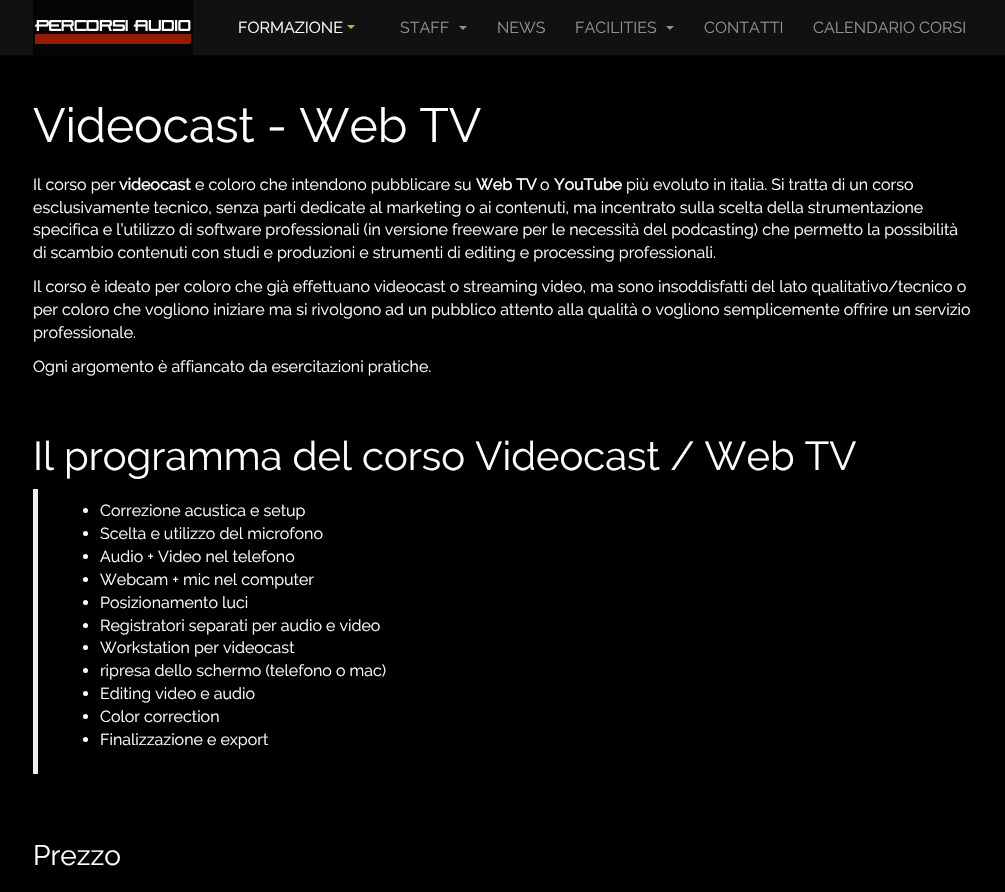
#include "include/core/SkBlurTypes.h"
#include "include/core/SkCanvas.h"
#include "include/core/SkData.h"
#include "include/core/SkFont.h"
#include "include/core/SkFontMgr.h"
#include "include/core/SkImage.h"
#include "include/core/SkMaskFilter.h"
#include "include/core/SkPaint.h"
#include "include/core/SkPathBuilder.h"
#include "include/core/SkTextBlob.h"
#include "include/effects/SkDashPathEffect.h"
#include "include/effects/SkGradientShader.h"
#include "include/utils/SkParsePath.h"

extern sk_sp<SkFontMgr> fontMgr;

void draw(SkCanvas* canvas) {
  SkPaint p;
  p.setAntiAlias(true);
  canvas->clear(SK_ColorBLACK);
  p.setColor(SkColorSetRGB(17, 17, 17));
  canvas->drawRect(SkRect::MakeLTRB(0, 0, 1005, 55), p);
  p.setColor(SkColorSetRGB(4, 4, 4));
  canvas->drawRect(SkRect::MakeLTRB(0, 55, 1005, 56), p);
  canvas->drawRect(SkRect::MakeLTRB(33, 0, 193, 55), p);
  canvas->drawImageRect(SkImages::DeferredFromEncodedData(SkData::MakeFromFileName("images/1.png")), SkRect::MakeLTRB(34, 20, 191, 45), SkSamplingOptions());
  p.setColor(SkColorSetRGB(188, 190, 0));
  canvas->drawPath(SkPathBuilder().moveTo(347, 25).lineTo(355, 25).lineTo(351, 29).close().detach(), p);
  p.setColor(SkColorSetRGB(145, 145, 145));
  canvas->drawPath(SkPathBuilder().moveTo(459, 26).lineTo(467, 26).lineTo(463, 30).close().detach(), p);
  canvas->drawPath(SkPathBuilder().moveTo(666, 26).lineTo(674, 26).lineTo(670, 30).close().detach(), p);
  p.setColor(SkColorSetRGB(238, 238, 238));
  canvas->drawRect(SkRect::MakeLTRB(33, 489, 38, 774), p);
  p.setColor(SK_ColorWHITE);
  canvas->drawCircle(85.5f, 510.5f, 2.5f, p);
  canvas->drawCircle(85.5f, 533.5f, 2.5f, p);
  canvas->drawCircle(85.5f, 556.5f, 2.5f, p);
  canvas->drawCircle(85.5f, 579.5f, 2.5f, p);
  canvas->drawCircle(85.5f, 602.5f, 2.5f, p);
  canvas->drawCircle(85.5f, 625.5f, 2.5f, p);
  canvas->drawCircle(85.5f, 647.5f, 2.5f, p);
  canvas->drawCircle(85.5f, 670.5f, 2.5f, p);
  canvas->drawCircle(85.5f, 693.5f, 2.5f, p);
  canvas->drawCircle(85.5f, 716.5f, 2.5f, p);
  canvas->drawCircle(85.5f, 739.5f, 2.5f, p);
  SkFont font1(fontMgr->matchFamilyStyle("Raleway", SkFontStyle::Normal()), 16);
  font1.setSubpixel(true);
  canvas->drawString("FORMAZIONE", 238, 33, font1, p);
  p.setColor(SkColorSetRGB(145, 145, 145));
  canvas->drawString("STAFF", 400, 33, font1, p);
  canvas->drawString("NEWS", 497, 33, font1, p);
  canvas->drawString("FACILITIES", 575, 33, font1, p);
  canvas->drawString("CONTATTI", 704, 33, font1, p);
  canvas->drawString("CALENDARIO CORSI", 813, 33, font1, p);
  SkFont font2(fontMgr->matchFamilyStyle("Raleway", SkFontStyle::Normal()), 48);
  font2.setSubpixel(true);
  p.setColor(SK_ColorWHITE);
  canvas->drawString("Videocast - Web TV", 33, 142, font2, p);
  canvas->drawString("Il corso per", 33, 190, font1, p);
  SkFont font3(fontMgr->matchFamilyStyle("Raleway", SkFontStyle::Bold()), 16);
  font3.setSubpixel(true);
  canvas->drawString("videocast", 119, 190, font3, p);
  canvas->drawString("e coloro che intendono pubblicare su", 195, 190, font1, p);
  canvas->drawString("Web TV", 476, 190, font3, p);
  canvas->drawString("o", 540, 190, font1, p);
  canvas->drawString("YouTube", 554, 190, font3, p);
  canvas->drawString("più evoluto in italia. Si tratta di un corso", 626, 190, font1, p);
  canvas->drawString("esclusivamente tecnico, senza parti dedicate al marketing o ai contenuti, ma incentrato sulla scelta della strumentazione", 33, 213, font1, p);
  canvas->drawString("specifica e l’utilizzo di software professionali (in versione freeware per le necessità del podcasting) che permetto la possibilità", 33, 235, font1, p);
  canvas->drawString("di scambio contenuti con studi e produzioni e strumenti di editing e processing professionali.", 33, 258, font1, p);
  canvas->drawString("Il corso è ideato per coloro che già effettuano videocast o streaming video, ma sono insoddisfatti del lato qualitativo/tecnico o", 33, 292, font1, p);
  canvas->drawString("per coloro che vogliono iniziare ma si rivolgono ad un pubblico attento alla qualità o vogliono semplicemente offrire un servizio", 33, 315, font1, p);
  canvas->drawString("professionale.", 33, 338, font1, p);
  canvas->drawString("Ogni argomento è affiancato da esercitazioni pratiche.", 33, 372, font1, p);
  SkFont font4(fontMgr->matchFamilyStyle("Raleway", SkFontStyle::Normal()), 40);
  font4.setSubpixel(true);
  canvas->drawString("Il programma del corso Videocast / Web TV", 33, 470, font4, p);
  canvas->drawString("Correzione acustica e setup", 100, 516, font1, p);
  canvas->drawString("Scelta e utilizzo del microfono", 100, 539, font1, p);
  canvas->drawString("Audio + Video nel telefono", 100, 562, font1, p);
  canvas->drawString("Webcam + mic nel computer", 100, 585, font1, p);
  canvas->drawString("Posizionamento luci", 100, 608, font1, p);
  canvas->drawString("Registratori separati per audio e video", 100, 631, font1, p);
  canvas->drawString("Workstation per videocast", 100, 653, font1, p);
  canvas->drawString("ripresa dello schermo (telefono o mac)", 100, 676, font1, p);
  canvas->drawString("Editing video e audio", 100, 699, font1, p);
  canvas->drawString("Color correction", 100, 722, font1, p);
  canvas->drawString("Finalizzazione e export", 100, 745, font1, p);
  SkFont font5(fontMgr->matchFamilyStyle("Raleway", SkFontStyle::Normal()), 28);
  font5.setSubpixel(true);
  canvas->drawString("Prezzo", 33, 865, font5, p);
}
